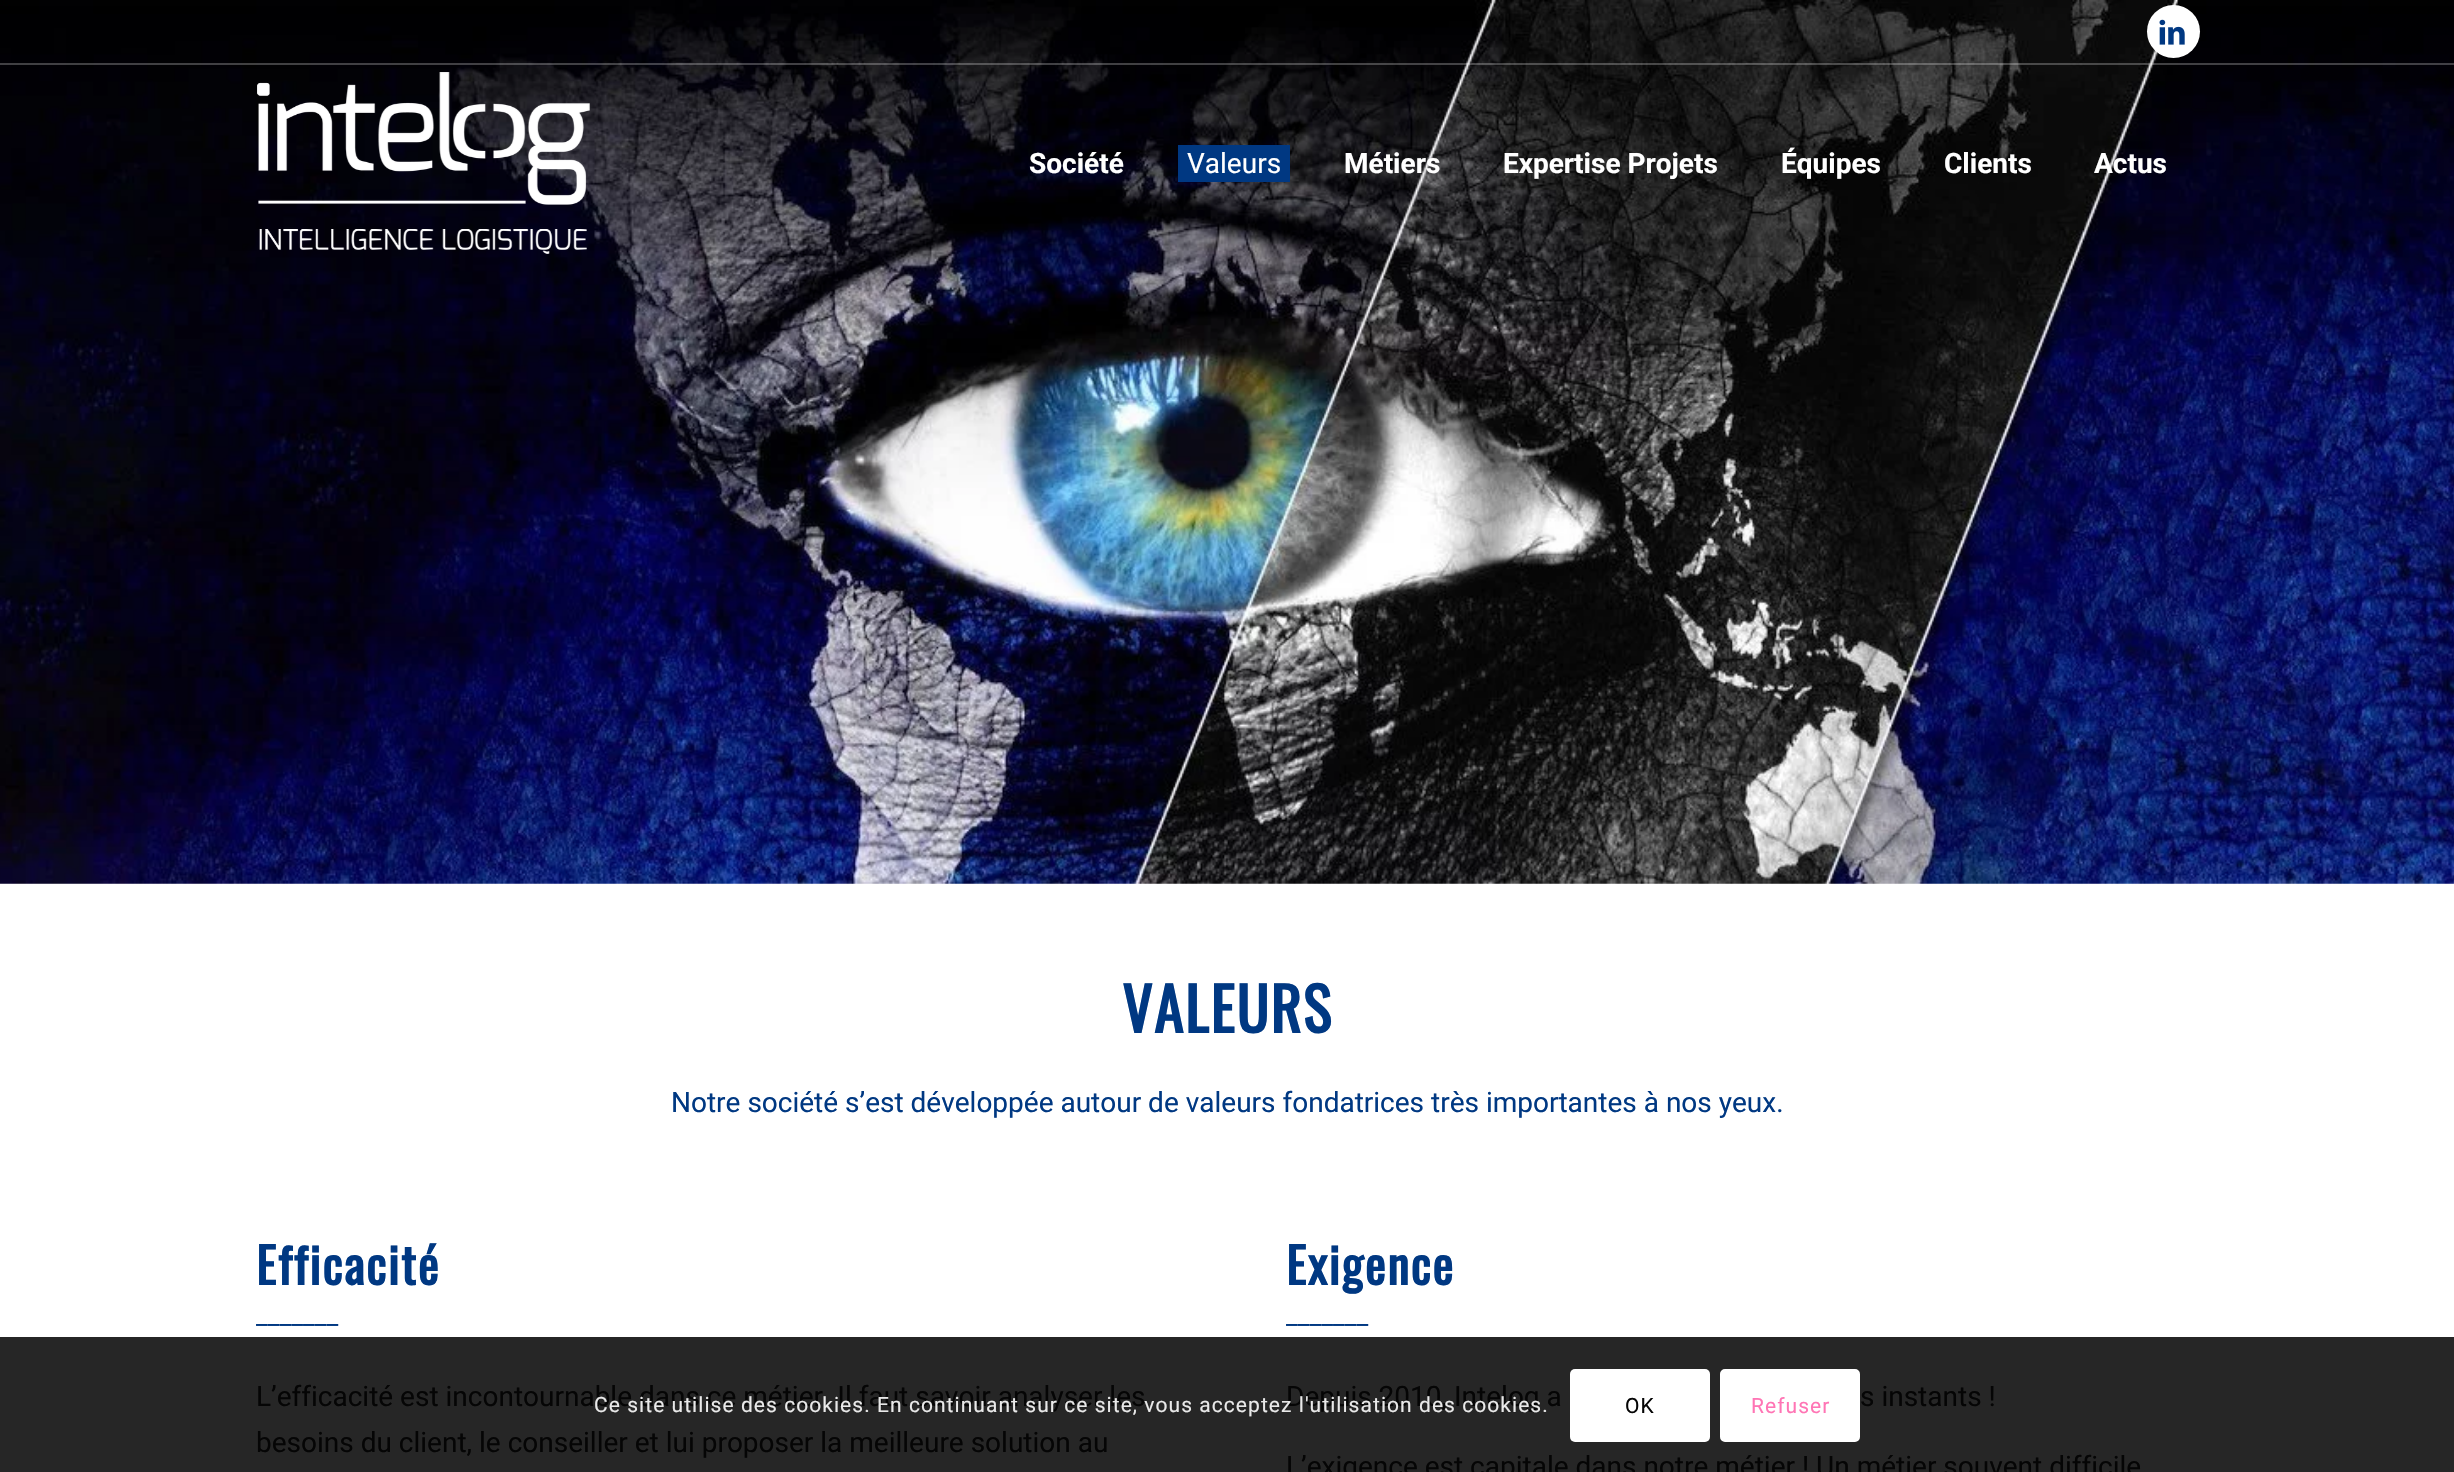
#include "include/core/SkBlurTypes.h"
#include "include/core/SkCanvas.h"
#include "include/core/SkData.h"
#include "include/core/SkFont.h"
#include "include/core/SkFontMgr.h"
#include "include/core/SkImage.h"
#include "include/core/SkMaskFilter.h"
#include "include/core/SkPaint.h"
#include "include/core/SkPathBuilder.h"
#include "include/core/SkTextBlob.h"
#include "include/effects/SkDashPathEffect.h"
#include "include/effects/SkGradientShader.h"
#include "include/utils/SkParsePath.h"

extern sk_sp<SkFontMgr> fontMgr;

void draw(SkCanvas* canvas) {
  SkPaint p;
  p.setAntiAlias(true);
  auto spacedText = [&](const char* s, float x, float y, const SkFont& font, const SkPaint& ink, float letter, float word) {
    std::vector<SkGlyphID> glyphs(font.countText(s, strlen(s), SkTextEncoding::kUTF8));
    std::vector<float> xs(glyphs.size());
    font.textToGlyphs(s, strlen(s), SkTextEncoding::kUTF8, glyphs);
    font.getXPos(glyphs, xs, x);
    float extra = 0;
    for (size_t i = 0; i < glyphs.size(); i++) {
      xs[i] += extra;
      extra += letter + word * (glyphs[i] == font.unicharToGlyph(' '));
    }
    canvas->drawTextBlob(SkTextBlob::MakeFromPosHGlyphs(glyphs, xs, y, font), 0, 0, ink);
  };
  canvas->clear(SK_ColorWHITE);
  p.setColor(SkColorSetRGB(38, 38, 38));
  canvas->drawRect(SkRect::MakeLTRB(0, 1337, 2454, 1472), p);
  canvas->drawImageRect(SkImages::DeferredFromEncodedData(SkData::MakeFromFileName("images/3.png")), SkRect::MakeLTRB(0, 0, 2454, 884), SkSamplingOptions());
  p.setColor(SkColorSetARGB(64, 255, 255, 255));
  canvas->drawRect(SkRect::MakeLTRB(0, 63, 2454, 65), p);
  p.setColor(SK_ColorWHITE);
  canvas->drawCircle(2173.5f, 31.5f, 26.5f, p);
  canvas->drawImageRect(SkImages::DeferredFromEncodedData(SkData::MakeFromFileName("images/1.png")), SkRect::MakeLTRB(2159, 19, 2185, 45), SkSamplingOptions());
  canvas->drawImageRect(SkImages::DeferredFromEncodedData(SkData::MakeFromFileName("images/2.png")), SkRect::MakeLTRB(257, 72, 590, 254), SkSamplingOptions());
  p.setColor(SkColorSetRGB(0, 56, 130));
  canvas->drawRect(SkRect::MakeLTRB(1178, 145, 1290, 182), p);
  p.setColor(SK_ColorWHITE);
  canvas->drawRoundRect(SkRect::MakeLTRB(1570, 1369, 1710, 1442), 5, 5, p);
  canvas->drawRoundRect(SkRect::MakeLTRB(1722, 1371, 1858, 1440), 3, 3, p);
  p.setStyle(SkPaint::kStroke_Style);
  p.setStrokeWidth(4);
  canvas->drawRoundRect(SkRect::MakeLTRB(1722, 1371, 1858, 1440), 3, 3, p);
  SkFont font1(fontMgr->matchFamilyStyle("Roboto", SkFontStyle::Bold()), 28);
  font1.setSubpixel(true);
  p.setStyle(SkPaint::kFill_Style);
  canvas->drawString("Société", 1029, 173, font1, p);
  SkFont font2(fontMgr->matchFamilyStyle("Roboto", SkFontStyle::Normal()), 28);
  font2.setSubpixel(true);
  canvas->drawString("Valeurs", 1187, 173, font2, p);
  canvas->drawString("Métiers", 1344, 173, font1, p);
  canvas->drawString("Expertise Projets", 1503, 173, font1, p);
  canvas->drawString("Équipes", 1781, 173, font1, p);
  canvas->drawString("Clients", 1944, 173, font1, p);
  canvas->drawString("Actus", 2094, 173, font1, p);
  SkFont font3(fontMgr->matchFamilyStyle("Oswald", SkFontStyle::Bold()), 59.5f);
  font3.setSubpixel(true);
  p.setColor(SkColorSetRGB(0, 56, 130));
  spacedText("VALEURS", 1122, 1033, font3, p, 1.75f, 0);
  canvas->drawString("Notre société s’est développée autour de valeurs fondatrices très importantes à nos yeux.", 671, 1112, font2, p);
  SkFont font4(fontMgr->matchFamilyStyle("Oswald", SkFontStyle::Bold()), 49);
  font4.setSubpixel(true);
  spacedText("Efficacité", 256, 1285, font4, p, 1.75f, 0);
  SkFont font5(fontMgr->matchFamilyStyle("Roboto", SkFontStyle::Normal()), 26);
  font5.setSubpixel(true);
  canvas->drawString("_______", 256, 1324, font5, p);
  p.setColor(SkColorSetRGB(5, 5, 5));
  canvas->drawString("L’efficacité est incontournable dans ce métier. Il faut savoir analyser les", 256, 1406, font2, p);
  canvas->drawString("besoins du client, le conseiller et lui proposer la meilleure solution au", 256, 1452, font2, p);
  p.setColor(SkColorSetRGB(0, 56, 130));
  spacedText("Exigence", 1286, 1285, font4, p, 1.75f, 0);
  canvas->drawString("_______", 1286, 1324, font5, p);
  p.setColor(SkColorSetRGB(5, 5, 5));
  canvas->drawString("Depuis 2010, Intelog a", 1286, 1406, font2, p);
  canvas->drawString("s instants !", 1860, 1406, font2, p);
  canvas->drawString("L’exigence est capitale dans notre métier ! Un métier souvent difficile", 1286, 1476, font2, p);
  SkFont font6(fontMgr->matchFamilyStyle("Roboto", SkFontStyle::Normal()), 21);
  font6.setSubpixel(true);
  p.setColor(SkColorSetRGB(233, 233, 233));
  spacedText("Ce site utilise des cookies. En continuant sur ce site, vous acceptez l'utilisation des cookies.", 594, 1412, font6, p, 1.05f, 0);
  p.setColor(SkColorSetRGB(5, 5, 5));
  spacedText("OK", 1625, 1413, font6, p, 1.05f, 0);
  p.setColor(SkColorSetRGB(255, 117, 181));
  spacedText("Refuser", 1751, 1413, font6, p, 1.05f, 0);
}
